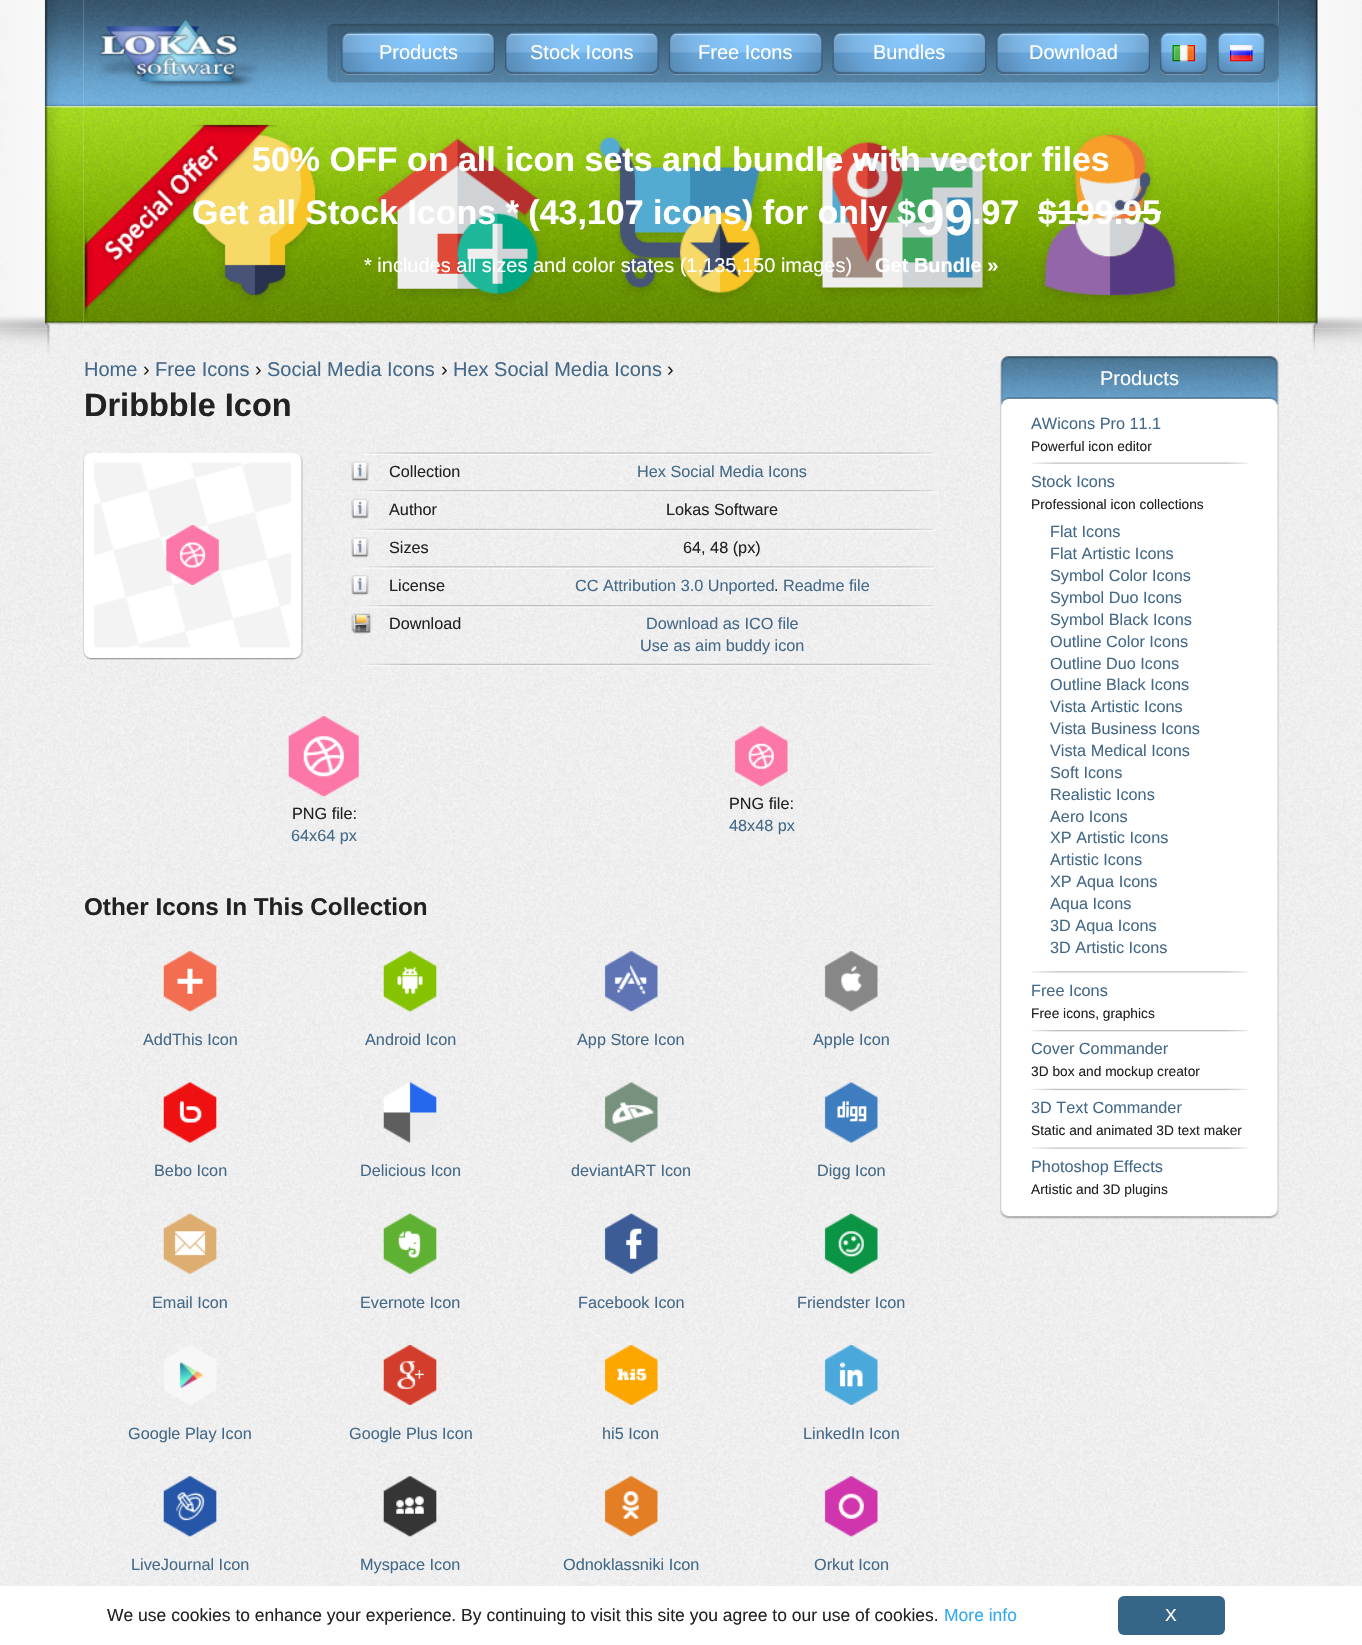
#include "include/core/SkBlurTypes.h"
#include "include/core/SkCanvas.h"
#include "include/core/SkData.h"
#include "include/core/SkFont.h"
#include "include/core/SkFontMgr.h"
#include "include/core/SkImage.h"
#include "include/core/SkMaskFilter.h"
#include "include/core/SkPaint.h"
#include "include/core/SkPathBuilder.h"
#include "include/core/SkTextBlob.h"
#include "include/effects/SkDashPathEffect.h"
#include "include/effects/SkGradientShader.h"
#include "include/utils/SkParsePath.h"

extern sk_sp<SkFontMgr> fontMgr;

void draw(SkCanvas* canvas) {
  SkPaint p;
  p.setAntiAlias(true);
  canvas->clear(SK_ColorWHITE);
  canvas->drawImageRect(SkImages::DeferredFromEncodedData(SkData::MakeFromFileName("images/1.png")), SkRect::MakeLTRB(0, 0, 1362, 1586), SkSamplingOptions());
  canvas->drawImageRect(SkImages::DeferredFromEncodedData(SkData::MakeFromFileName("images/2.png")), SkRect::MakeLTRB(0, 0, 84, 107), SkSamplingOptions());
  canvas->drawImageRect(SkImages::DeferredFromEncodedData(SkData::MakeFromFileName("images/3.png")), SkRect::MakeLTRB(83, 0, 1279, 107), SkSamplingOptions());
  canvas->drawImageRect(SkImages::DeferredFromEncodedData(SkData::MakeFromFileName("images/4.png")), SkRect::MakeLTRB(96, 0, 259, 100), SkSamplingOptions());
  canvas->drawImageRect(SkImages::DeferredFromEncodedData(SkData::MakeFromFileName("images/5.png")), SkRect::MakeLTRB(327, 23, 336, 83), SkSamplingOptions());
  canvas->drawImageRect(SkImages::DeferredFromEncodedData(SkData::MakeFromFileName("images/6.png")), SkRect::MakeLTRB(336, 23, 1270, 83), SkSamplingOptions());
  canvas->drawImageRect(SkImages::DeferredFromEncodedData(SkData::MakeFromFileName("images/7.png")), SkRect::MakeLTRB(341, 32, 495, 75), SkSamplingOptions());
  canvas->drawImageRect(SkImages::DeferredFromEncodedData(SkData::MakeFromFileName("images/8.png")), SkRect::MakeLTRB(505, 32, 659, 75), SkSamplingOptions());
  canvas->drawImageRect(SkImages::DeferredFromEncodedData(SkData::MakeFromFileName("images/9.png")), SkRect::MakeLTRB(668, 32, 823, 75), SkSamplingOptions());
  canvas->drawImageRect(SkImages::DeferredFromEncodedData(SkData::MakeFromFileName("images/10.png")), SkRect::MakeLTRB(832, 32, 987, 75), SkSamplingOptions());
  canvas->drawImageRect(SkImages::DeferredFromEncodedData(SkData::MakeFromFileName("images/11.png")), SkRect::MakeLTRB(996, 32, 1150, 75), SkSamplingOptions());
  canvas->drawImageRect(SkImages::DeferredFromEncodedData(SkData::MakeFromFileName("images/12.png")), SkRect::MakeLTRB(1160, 32, 1208, 75), SkSamplingOptions());
  canvas->drawImageRect(SkImages::DeferredFromEncodedData(SkData::MakeFromFileName("images/13.png")), SkRect::MakeLTRB(1172, 45, 1195, 62), SkSamplingOptions());
  canvas->drawImageRect(SkImages::DeferredFromEncodedData(SkData::MakeFromFileName("images/14.png")), SkRect::MakeLTRB(1217, 32, 1265, 75), SkSamplingOptions());
  canvas->drawImageRect(SkImages::DeferredFromEncodedData(SkData::MakeFromFileName("images/15.png")), SkRect::MakeLTRB(1230, 45, 1253, 62), SkSamplingOptions());
  canvas->drawImageRect(SkImages::DeferredFromEncodedData(SkData::MakeFromFileName("images/17.png")), SkRect::MakeLTRB(1278, 0, 1362, 107), SkSamplingOptions());
  canvas->drawImageRect(SkImages::DeferredFromEncodedData(SkData::MakeFromFileName("images/16.png")), SkRect::MakeLTRB(1270, 23, 1279, 83), SkSamplingOptions());
  canvas->drawImageRect(SkImages::DeferredFromEncodedData(SkData::MakeFromFileName("images/18.png")), SkRect::MakeLTRB(0, 106, 84, 329), SkSamplingOptions());
  canvas->drawImageRect(SkImages::DeferredFromEncodedData(SkData::MakeFromFileName("images/19.png")), SkRect::MakeLTRB(83, 106, 1279, 329), SkSamplingOptions());
  canvas->drawImageRect(SkImages::DeferredFromEncodedData(SkData::MakeFromFileName("images/20.png")), SkRect::MakeLTRB(84, 124, 1179, 320), SkSamplingOptions());
  p.setColor(SK_ColorWHITE);
  canvas->drawRect(SkRect::MakeLTRB(1038, 211, 1161, 214), p);
  canvas->drawImageRect(SkImages::DeferredFromEncodedData(SkData::MakeFromFileName("images/21.png")), SkRect::MakeLTRB(1278, 106, 1362, 329), SkSamplingOptions());
  canvas->drawImageRect(SkImages::DeferredFromEncodedData(SkData::MakeFromFileName("images/22.png")), SkRect::MakeLTRB(0, 328, 84, 391), SkSamplingOptions());
  p.setColor(SkColorSetARGB(26, 0, 0, 0));
  canvas->drawPath(SkPathBuilder().moveTo(84, 458).cubicTo(83, 459, 83, 460, 83, 462).lineTo(83, 651).cubicTo(83, 656, 87, 660, 92, 660).lineTo(294, 660).cubicTo(299, 660, 303, 656, 303, 651).lineTo(303, 462).cubicTo(303, 459, 301, 456, 299, 454).cubicTo(300, 456, 301, 458, 301, 460).lineTo(301, 650).cubicTo(301, 654, 298, 658, 294, 658).lineTo(91, 658).cubicTo(87, 658, 84, 654, 84, 650).lineTo(84, 460).close().detach(), p);
  p.setColor(SkColorSetARGB(64, 0, 0, 0));
  canvas->drawPath(SkPathBuilder().moveTo(84, 652).cubicTo(85, 656, 88, 659, 92, 659).lineTo(293, 659).cubicTo(297, 659, 300, 656, 301, 652).cubicTo(300, 655, 297, 658, 294, 658).lineTo(91, 658).cubicTo(88, 658, 85, 655, 84, 652).close().detach(), p);
  p.setColor(SK_ColorWHITE);
  canvas->drawRoundRect(SkRect::MakeLTRB(84, 453, 301, 658), 8, 8, p);
  canvas->drawImageRect(SkImages::DeferredFromEncodedData(SkData::MakeFromFileName("images/23.png")), SkRect::MakeLTRB(94, 462, 291, 648), SkSamplingOptions());
  canvas->drawImageRect(SkImages::DeferredFromEncodedData(SkData::MakeFromFileName("images/24.png")), SkRect::MakeLTRB(166, 525, 219, 585), SkSamplingOptions());
  canvas->drawImageRect(SkImages::DeferredFromEncodedData(SkData::MakeFromFileName("images/25.png")), SkRect::MakeLTRB(353, 452, 934, 455), SkSamplingOptions());
  canvas->drawImageRect(SkImages::DeferredFromEncodedData(SkData::MakeFromFileName("images/26.png")), SkRect::MakeLTRB(351, 461, 369, 482), SkSamplingOptions());
  canvas->drawImageRect(SkImages::DeferredFromEncodedData(SkData::MakeFromFileName("images/27.png")), SkRect::MakeLTRB(351, 490, 934, 493), SkSamplingOptions());
  canvas->drawImageRect(SkImages::DeferredFromEncodedData(SkData::MakeFromFileName("images/28.png")), SkRect::MakeLTRB(351, 498, 369, 520), SkSamplingOptions());
  canvas->drawImageRect(SkImages::DeferredFromEncodedData(SkData::MakeFromFileName("images/29.png")), SkRect::MakeLTRB(354, 528, 934, 532), SkSamplingOptions());
  canvas->drawImageRect(SkImages::DeferredFromEncodedData(SkData::MakeFromFileName("images/30.png")), SkRect::MakeLTRB(351, 537, 369, 558), SkSamplingOptions());
  canvas->drawImageRect(SkImages::DeferredFromEncodedData(SkData::MakeFromFileName("images/31.png")), SkRect::MakeLTRB(354, 566, 934, 569), SkSamplingOptions());
  canvas->drawImageRect(SkImages::DeferredFromEncodedData(SkData::MakeFromFileName("images/32.png")), SkRect::MakeLTRB(351, 575, 369, 596), SkSamplingOptions());
  canvas->drawImageRect(SkImages::DeferredFromEncodedData(SkData::MakeFromFileName("images/33.png")), SkRect::MakeLTRB(352, 605, 934, 608), SkSamplingOptions());
  canvas->drawImageRect(SkImages::DeferredFromEncodedData(SkData::MakeFromFileName("images/34.png")), SkRect::MakeLTRB(351, 613, 372, 634), SkSamplingOptions());
  canvas->drawImageRect(SkImages::DeferredFromEncodedData(SkData::MakeFromFileName("images/35.png")), SkRect::MakeLTRB(353, 663, 934, 667), SkSamplingOptions());
  canvas->drawImageRect(SkImages::DeferredFromEncodedData(SkData::MakeFromFileName("images/36.png")), SkRect::MakeLTRB(288, 716, 359, 797), SkSamplingOptions());
  canvas->drawImageRect(SkImages::DeferredFromEncodedData(SkData::MakeFromFileName("images/37.png")), SkRect::MakeLTRB(734, 726, 788, 787), SkSamplingOptions());
  canvas->drawImageRect(SkImages::DeferredFromEncodedData(SkData::MakeFromFileName("images/38.png")), SkRect::MakeLTRB(163, 951, 217, 1012), SkSamplingOptions());
  canvas->drawImageRect(SkImages::DeferredFromEncodedData(SkData::MakeFromFileName("images/39.png")), SkRect::MakeLTRB(383, 951, 437, 1012), SkSamplingOptions());
  canvas->drawImageRect(SkImages::DeferredFromEncodedData(SkData::MakeFromFileName("images/40.png")), SkRect::MakeLTRB(604, 951, 658, 1012), SkSamplingOptions());
  canvas->drawImageRect(SkImages::DeferredFromEncodedData(SkData::MakeFromFileName("images/41.png")), SkRect::MakeLTRB(824, 951, 878, 1012), SkSamplingOptions());
  canvas->drawImageRect(SkImages::DeferredFromEncodedData(SkData::MakeFromFileName("images/42.png")), SkRect::MakeLTRB(163, 1082, 217, 1143), SkSamplingOptions());
  canvas->drawImageRect(SkImages::DeferredFromEncodedData(SkData::MakeFromFileName("images/43.png")), SkRect::MakeLTRB(383, 1082, 437, 1143), SkSamplingOptions());
  canvas->drawImageRect(SkImages::DeferredFromEncodedData(SkData::MakeFromFileName("images/44.png")), SkRect::MakeLTRB(604, 1082, 658, 1143), SkSamplingOptions());
  canvas->drawImageRect(SkImages::DeferredFromEncodedData(SkData::MakeFromFileName("images/45.png")), SkRect::MakeLTRB(824, 1082, 878, 1143), SkSamplingOptions());
  canvas->drawImageRect(SkImages::DeferredFromEncodedData(SkData::MakeFromFileName("images/46.png")), SkRect::MakeLTRB(163, 1213, 217, 1274), SkSamplingOptions());
  canvas->drawImageRect(SkImages::DeferredFromEncodedData(SkData::MakeFromFileName("images/47.png")), SkRect::MakeLTRB(383, 1213, 437, 1274), SkSamplingOptions());
  canvas->drawImageRect(SkImages::DeferredFromEncodedData(SkData::MakeFromFileName("images/48.png")), SkRect::MakeLTRB(604, 1213, 658, 1274), SkSamplingOptions());
  canvas->drawImageRect(SkImages::DeferredFromEncodedData(SkData::MakeFromFileName("images/49.png")), SkRect::MakeLTRB(824, 1213, 878, 1274), SkSamplingOptions());
  canvas->drawImageRect(SkImages::DeferredFromEncodedData(SkData::MakeFromFileName("images/50.png")), SkRect::MakeLTRB(164, 1345, 217, 1405), SkSamplingOptions());
  canvas->drawImageRect(SkImages::DeferredFromEncodedData(SkData::MakeFromFileName("images/51.png")), SkRect::MakeLTRB(383, 1345, 437, 1405), SkSamplingOptions());
  canvas->drawImageRect(SkImages::DeferredFromEncodedData(SkData::MakeFromFileName("images/52.png")), SkRect::MakeLTRB(604, 1345, 658, 1405), SkSamplingOptions());
  canvas->drawImageRect(SkImages::DeferredFromEncodedData(SkData::MakeFromFileName("images/53.png")), SkRect::MakeLTRB(824, 1345, 878, 1405), SkSamplingOptions());
  canvas->drawImageRect(SkImages::DeferredFromEncodedData(SkData::MakeFromFileName("images/54.png")), SkRect::MakeLTRB(163, 1476, 217, 1537), SkSamplingOptions());
  canvas->drawImageRect(SkImages::DeferredFromEncodedData(SkData::MakeFromFileName("images/55.png")), SkRect::MakeLTRB(383, 1476, 437, 1537), SkSamplingOptions());
  canvas->drawImageRect(SkImages::DeferredFromEncodedData(SkData::MakeFromFileName("images/56.png")), SkRect::MakeLTRB(604, 1476, 658, 1537), SkSamplingOptions());
  canvas->drawImageRect(SkImages::DeferredFromEncodedData(SkData::MakeFromFileName("images/57.png")), SkRect::MakeLTRB(824, 1476, 878, 1537), SkSamplingOptions());
  canvas->drawImageRect(SkImages::DeferredFromEncodedData(SkData::MakeFromFileName("images/58.png")), SkRect::MakeLTRB(1000, 356, 1279, 1219), SkSamplingOptions());
  canvas->drawImageRect(SkImages::DeferredFromEncodedData(SkData::MakeFromFileName("images/59.png")), SkRect::MakeLTRB(1000, 356, 1279, 405), SkSamplingOptions());
  canvas->drawImageRect(SkImages::DeferredFromEncodedData(SkData::MakeFromFileName("images/60.png")), SkRect::MakeLTRB(1000, 1209, 1279, 1219), SkSamplingOptions());
  canvas->drawImageRect(SkImages::DeferredFromEncodedData(SkData::MakeFromFileName("images/61.png")), SkRect::MakeLTRB(1031, 462, 1248, 464), SkSamplingOptions());
  canvas->drawImageRect(SkImages::DeferredFromEncodedData(SkData::MakeFromFileName("images/62.png")), SkRect::MakeLTRB(1031, 971, 1248, 973), SkSamplingOptions());
  canvas->drawImageRect(SkImages::DeferredFromEncodedData(SkData::MakeFromFileName("images/63.png")), SkRect::MakeLTRB(1031, 1030, 1248, 1032), SkSamplingOptions());
  canvas->drawImageRect(SkImages::DeferredFromEncodedData(SkData::MakeFromFileName("images/64.png")), SkRect::MakeLTRB(1031, 1088, 1248, 1091), SkSamplingOptions());
  canvas->drawImageRect(SkImages::DeferredFromEncodedData(SkData::MakeFromFileName("images/61.png")), SkRect::MakeLTRB(1031, 1147, 1248, 1149), SkSamplingOptions());
  canvas->drawImageRect(SkImages::DeferredFromEncodedData(SkData::MakeFromFileName("images/65.png")), SkRect::MakeLTRB(1279, 328, 1362, 391), SkSamplingOptions());
  p.setColor(SkColorSetRGB(53, 101, 135));
  canvas->drawRoundRect(SkRect::MakeLTRB(1118, 1596, 1225, 1635), 6, 6, p);
  SkFont font1(fontMgr->matchFamilyStyle("Liberation Sans", SkFontStyle::Normal()), 20);
  font1.setSubpixel(true);
  p.setColor(SK_ColorWHITE);
  canvas->drawString("Products", 379, 59, font1, p);
  canvas->drawString("Stock Icons", 530, 59, font1, p);
  canvas->drawString("Free Icons", 698, 59, font1, p);
  canvas->drawString("Bundles", 873, 59, font1, p);
  canvas->drawString("Download", 1029, 59, font1, p);
  SkFont font2(fontMgr->matchFamilyStyle("Liberation Sans", SkFontStyle::Bold()), 34);
  font2.setSubpixel(true);
  canvas->drawString("50% OFF on all icon sets and bundle with vector files", 252, 171, font2, p);
  canvas->drawString("Get all Stock Icons * (43,107 icons) for only", 192, 224, font2, p);
  canvas->drawString("$", 897, 224, font2, p);
  SkFont font3(fontMgr->matchFamilyStyle("Liberation Sans", SkFontStyle::Bold()), 51);
  font3.setSubpixel(true);
  canvas->drawString("99", 916, 235, font3, p);
  canvas->drawString(".97", 972, 224, font2, p);
  canvas->drawString("$199.95", 1038, 224, font2, p);
  canvas->drawString("* includes all sizes and color states (1,135,150 images)", 364, 272, font1, p);
  SkFont font4(fontMgr->matchFamilyStyle("Liberation Sans", SkFontStyle::Bold()), 20);
  font4.setSubpixel(true);
  canvas->drawString("Get Bundle »", 875, 272, font4, p);
  p.setColor(SkColorSetRGB(68, 105, 136));
  canvas->drawString("Home", 84, 376, font1, p);
  p.setColor(SkColorSetRGB(34, 34, 34));
  canvas->drawString("›", 143, 376, font1, p);
  p.setColor(SkColorSetRGB(68, 105, 136));
  canvas->drawString("Free Icons", 155, 376, font1, p);
  p.setColor(SkColorSetRGB(34, 34, 34));
  canvas->drawString("›", 255, 376, font1, p);
  p.setColor(SkColorSetRGB(68, 105, 136));
  canvas->drawString("Social Media Icons", 267, 376, font1, p);
  p.setColor(SkColorSetRGB(34, 34, 34));
  canvas->drawString("›", 441, 376, font1, p);
  p.setColor(SkColorSetRGB(68, 105, 136));
  canvas->drawString("Hex Social Media Icons", 453, 376, font1, p);
  p.setColor(SkColorSetRGB(34, 34, 34));
  canvas->drawString("›", 667, 376, font1, p);
  SkFont font5(fontMgr->matchFamilyStyle("Liberation Sans", SkFontStyle::Bold()), 32.5f);
  font5.setSubpixel(true);
  canvas->drawString("Dribbble Icon", 84, 416, font5, p);
  SkFont font6(fontMgr->matchFamilyStyle("Liberation Sans", SkFontStyle::Normal()), 16.25f);
  font6.setSubpixel(true);
  canvas->drawString("Collection", 389, 477, font6, p);
  p.setColor(SkColorSetRGB(68, 105, 136));
  canvas->drawString("Hex Social Media Icons", 637, 477, font6, p);
  p.setColor(SkColorSetRGB(34, 34, 34));
  canvas->drawString("Author", 389, 515, font6, p);
  canvas->drawString("Lokas Software", 666, 515, font6, p);
  canvas->drawString("Sizes", 389, 553, font6, p);
  canvas->drawString("64, 48 (px)", 683, 553, font6, p);
  canvas->drawString("License", 389, 591, font6, p);
  p.setColor(SkColorSetRGB(68, 105, 136));
  canvas->drawString("CC Attribution 3.0 Unported", 575, 591, font6, p);
  p.setColor(SkColorSetRGB(34, 34, 34));
  canvas->drawString(".", 774, 591, font6, p);
  p.setColor(SkColorSetRGB(68, 105, 136));
  canvas->drawString("Readme file", 783, 591, font6, p);
  p.setColor(SkColorSetRGB(34, 34, 34));
  canvas->drawString("Download", 389, 629, font6, p);
  p.setColor(SkColorSetRGB(68, 105, 136));
  canvas->drawString("Download as ICO file", 646, 629, font6, p);
  canvas->drawString("Use as aim buddy icon", 640, 651, font6, p);
  p.setColor(SkColorSetRGB(34, 34, 34));
  canvas->drawString("PNG file:", 292, 819, font6, p);
  p.setColor(SkColorSetRGB(68, 105, 136));
  canvas->drawString("64x64 px", 291, 841, font6, p);
  p.setColor(SkColorSetRGB(34, 34, 34));
  canvas->drawString("PNG file:", 729, 809, font6, p);
  p.setColor(SkColorSetRGB(68, 105, 136));
  canvas->drawString("48x48 px", 729, 831, font6, p);
  SkFont font7(fontMgr->matchFamilyStyle("Liberation Sans", SkFontStyle::Bold()), 24.25f);
  font7.setSubpixel(true);
  p.setColor(SkColorSetRGB(34, 34, 34));
  canvas->drawString("Other Icons In This Collection", 84, 915, font7, p);
  p.setColor(SkColorSetRGB(68, 105, 136));
  canvas->drawString("AddThis Icon", 143, 1045, font6, p);
  canvas->drawString("Android Icon", 365, 1045, font6, p);
  canvas->drawString("App Store Icon", 577, 1045, font6, p);
  canvas->drawString("Apple Icon", 813, 1045, font6, p);
  canvas->drawString("Bebo Icon", 154, 1176, font6, p);
  canvas->drawString("Delicious Icon", 360, 1176, font6, p);
  canvas->drawString("deviantART Icon", 571, 1176, font6, p);
  canvas->drawString("Digg Icon", 817, 1176, font6, p);
  canvas->drawString("Email Icon", 152, 1308, font6, p);
  canvas->drawString("Evernote Icon", 360, 1308, font6, p);
  canvas->drawString("Facebook Icon", 578, 1308, font6, p);
  canvas->drawString("Friendster Icon", 797, 1308, font6, p);
  canvas->drawString("Google Play Icon", 128, 1439, font6, p);
  canvas->drawString("Google Plus Icon", 349, 1439, font6, p);
  canvas->drawString("hi5 Icon", 602, 1439, font6, p);
  canvas->drawString("LinkedIn Icon", 803, 1439, font6, p);
  canvas->drawString("LiveJournal Icon", 131, 1570, font6, p);
  canvas->drawString("Myspace Icon", 360, 1570, font6, p);
  canvas->drawString("Odnoklassniki Icon", 563, 1570, font6, p);
  canvas->drawString("Orkut Icon", 814, 1570, font6, p);
  p.setColor(SK_ColorWHITE);
  canvas->drawString("Products", 1100, 385, font1, p);
  p.setColor(SkColorSetRGB(68, 105, 136));
  canvas->drawString("AWicons Pro 11.1", 1031, 429, font6, p);
  SkFont font8(fontMgr->matchFamilyStyle("Liberation Sans", SkFontStyle::Normal()), 13.75f);
  font8.setSubpixel(true);
  p.setColor(SkColorSetRGB(34, 34, 34));
  canvas->drawString("Powerful icon editor", 1031, 451, font8, p);
  p.setColor(SkColorSetRGB(68, 105, 136));
  canvas->drawString("Stock Icons", 1031, 487, font6, p);
  p.setColor(SkColorSetRGB(34, 34, 34));
  canvas->drawString("Professional icon collections", 1031, 509, font8, p);
  p.setColor(SkColorSetRGB(68, 105, 136));
  canvas->drawString("Flat Icons", 1050, 537, font6, p);
  canvas->drawString("Flat Artistic Icons", 1050, 559, font6, p);
  canvas->drawString("Symbol Color Icons", 1050, 581, font6, p);
  canvas->drawString("Symbol Duo Icons", 1050, 603, font6, p);
  canvas->drawString("Symbol Black Icons", 1050, 625, font6, p);
  canvas->drawString("Outline Color Icons", 1050, 647, font6, p);
  canvas->drawString("Outline Duo Icons", 1050, 669, font6, p);
  canvas->drawString("Outline Black Icons", 1050, 690, font6, p);
  canvas->drawString("Vista Artistic Icons", 1050, 712, font6, p);
  canvas->drawString("Vista Business Icons", 1050, 734, font6, p);
  canvas->drawString("Vista Medical Icons", 1050, 756, font6, p);
  canvas->drawString("Soft Icons", 1050, 778, font6, p);
  canvas->drawString("Realistic Icons", 1050, 800, font6, p);
  canvas->drawString("Aero Icons", 1050, 822, font6, p);
  canvas->drawString("XP Artistic Icons", 1050, 843, font6, p);
  canvas->drawString("Artistic Icons", 1050, 865, font6, p);
  canvas->drawString("XP Aqua Icons", 1050, 887, font6, p);
  canvas->drawString("Aqua Icons", 1050, 909, font6, p);
  canvas->drawString("3D Aqua Icons", 1050, 931, font6, p);
  canvas->drawString("3D Artistic Icons", 1050, 953, font6, p);
  canvas->drawString("Free Icons", 1031, 996, font6, p);
  p.setColor(SkColorSetRGB(34, 34, 34));
  canvas->drawString("Free icons, graphics", 1031, 1018, font8, p);
  p.setColor(SkColorSetRGB(68, 105, 136));
  canvas->drawString("Cover Commander", 1031, 1054, font6, p);
  p.setColor(SkColorSetRGB(34, 34, 34));
  canvas->drawString("3D box and mockup creator", 1031, 1076, font8, p);
  p.setColor(SkColorSetRGB(68, 105, 136));
  canvas->drawString("3D Text Commander", 1031, 1113, font6, p);
  p.setColor(SkColorSetRGB(34, 34, 34));
  canvas->drawString("Static and animated 3D text maker", 1031, 1135, font8, p);
  p.setColor(SkColorSetRGB(68, 105, 136));
  canvas->drawString("Photoshop Effects", 1031, 1172, font6, p);
  p.setColor(SkColorSetRGB(34, 34, 34));
  canvas->drawString("Artistic and 3D plugins", 1031, 1194, font8, p);
  SkFont font9(fontMgr->matchFamilyStyle("Liberation Sans", SkFontStyle::Normal()), 17.5f);
  font9.setSubpixel(true);
  canvas->drawString("We use cookies to enhance your experience. By continuing to visit this site you agree to our use of cookies.", 107, 1621, font9, p);
  p.setColor(SkColorSetRGB(49, 168, 240));
  canvas->drawString("More info", 944, 1621, font9, p);
  p.setColor(SK_ColorWHITE);
  canvas->drawString("X", 1165, 1621, font9, p);
}
